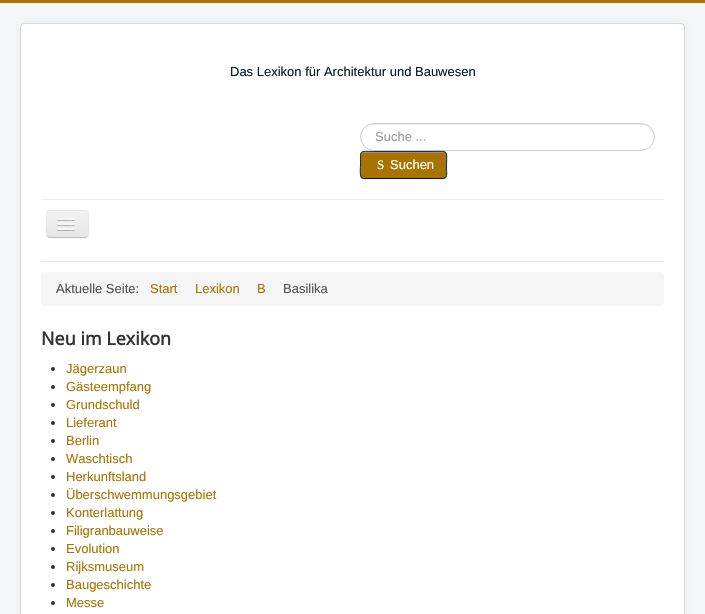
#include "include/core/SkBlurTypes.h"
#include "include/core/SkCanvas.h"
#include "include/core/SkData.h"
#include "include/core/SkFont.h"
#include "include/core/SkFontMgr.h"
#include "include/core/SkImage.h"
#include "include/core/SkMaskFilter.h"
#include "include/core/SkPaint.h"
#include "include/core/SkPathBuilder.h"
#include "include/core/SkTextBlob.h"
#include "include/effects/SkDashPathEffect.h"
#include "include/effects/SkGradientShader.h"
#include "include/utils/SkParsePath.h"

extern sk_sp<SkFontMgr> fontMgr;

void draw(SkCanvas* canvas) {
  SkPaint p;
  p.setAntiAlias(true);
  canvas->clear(SkColorSetRGB(244, 246, 247));
  p.setColor(SkColorSetRGB(168, 115, 0));
  canvas->drawRect(SkRect::MakeLTRB(0, 0, 705, 3), p);
  p.setColor(SkColorSetARGB(13, 0, 0, 0));
  p.setMaskFilter(SkMaskFilter::MakeBlur(kNormal_SkBlurStyle, 3));
  canvas->drawRoundRect(SkRect::MakeLTRB(20, 23, 685, 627), 4, 4, p);
  p.setMaskFilter(nullptr);
  p.setColor(SK_ColorWHITE);
  canvas->drawRoundRect(SkRect::MakeLTRB(20, 23, 685, 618), 4, 4, p);
  p.setStyle(SkPaint::kStroke_Style);
  p.setStrokeWidth(1);
  p.setColor(SkColorSetARGB(38, 0, 0, 0));
  canvas->drawRoundRect(SkRect::MakeLTRB(20.5f, 23.5f, 684.5f, 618.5f), 3.5f, 3.5f, p);
  p.setStyle(SkPaint::kFill_Style);
  p.setColor(SkColorSetRGB(236, 236, 236));
  canvas->drawPath(SkPathBuilder().moveTo(374, 125).lineTo(641, 125).cubicTo(649, 125, 654, 132, 654, 140).lineTo(654, 137).cubicTo(654, 130, 648, 124, 641, 124).lineTo(374, 124).cubicTo(367, 124, 361, 130, 361, 137).lineTo(361, 140).cubicTo(360, 133, 364, 125, 374, 125).close().detach(), p);
  p.setStyle(SkPaint::kStroke_Style);
  p.setColor(SkColorSetRGB(204, 204, 204));
  canvas->drawRoundRect(SkRect::MakeLTRB(360.5f, 123.5f, 654.5f, 150.5f), 13.5f, 13.5f, p);
  p.setStyle(SkPaint::kFill_Style);
  p.setColor(SkColorSetARGB(13, 0, 0, 0));
  p.setMaskFilter(SkMaskFilter::MakeBlur(kNormal_SkBlurStyle, 1));
  canvas->drawRoundRect(SkRect::MakeLTRB(360, 152, 447, 180), 4, 4, p);
  p.setMaskFilter(nullptr);
  p.setColor(SkColorSetRGB(168, 115, 0));
  canvas->drawRoundRect(SkRect::MakeLTRB(360, 151, 447, 179), 4, 4, p);
  p.setColor(SkColorSetRGB(185, 143, 51));
  canvas->drawPath(SkPathBuilder().moveTo(364, 153).lineTo(443, 153).cubicTo(445, 153, 446, 154, 446, 156).cubicTo(446, 149, 434, 152, 430, 152).lineTo(377, 152).cubicTo(373, 152, 361, 149, 361, 156).cubicTo(361, 154, 362, 153, 364, 153).close().detach(), p);
  p.setStyle(SkPaint::kStroke_Style);
  p.setColor(SkColorSetRGB(0, 22, 65));
  canvas->drawPath(SkPathBuilder().moveTo(445.5f, 177.5f).lineTo(443.5f, 178.5f).lineTo(363.5f, 178.5f).lineTo(361.5f, 177.5f).detach(), p);
  p.setColor(SkColorSetRGB(0, 47, 141));
  canvas->drawPath(SkPathBuilder().moveTo(361.5f, 177.5f).cubicTo(359.5f, 175, 360.5f, 167.5f, 360.5f, 165).cubicTo(360.5f, 148.5f, 359, 151.5f, 377, 151.5f).lineTo(430, 151.5f).cubicTo(450, 151.5f, 446.5f, 149, 446.5f, 168.5f).cubicTo(446.5f, 171, 447.5f, 175.5f, 445.5f, 177.5f).detach(), p);
  p.setStyle(SkPaint::kFill_Style);
  p.setColor(SkColorSetRGB(236, 236, 236));
  canvas->drawRect(SkRect::MakeLTRB(41, 199, 664, 200), p);
  canvas->drawRect(SkRect::MakeLTRB(41, 261, 664, 262), p);
  p.setColor(SkColorSetRGB(237, 237, 237));
  canvas->drawRoundRect(SkRect::MakeLTRB(46, 210, 89, 238), 4, 4, p);
  canvas->save();
  canvas->clipPath(SkPathBuilder().moveTo(50, 210).lineTo(85, 210).cubicTo(87, 210, 89, 212, 89, 214).lineTo(89, 234).cubicTo(89, 236, 87, 238, 85, 238).lineTo(50, 238).cubicTo(48, 238, 46, 236, 46, 234).lineTo(46, 214).cubicTo(46, 212, 48, 210, 50, 210).close().detach(), true);
  {
    const SkColor colors[] = {SkColorSetRGB(242, 242, 242), SkColorSetRGB(230, 230, 230)};
    const float stops[] = {0, 1};
    const SkPoint ends[] = {{68, 211}, {68, 237}};
    p.setShader(SkGradientShader::MakeLinear(ends, colors, stops, 2, SkTileMode::kClamp));
    p.setAlpha(255);
  }
  canvas->drawRect(SkRect::MakeLTRB(46, 211, 89, 237), p);
  canvas->restore();
  p.setStyle(SkPaint::kStroke_Style);
  p.setShader(nullptr);
  p.setColor(SkColorSetRGB(191, 191, 191));
  canvas->drawPath(SkPathBuilder().moveTo(87.5f, 236.5f).cubicTo(87, 237, 86, 237.5f, 85, 237.5f).lineTo(50, 237.5f).cubicTo(49, 237.5f, 48, 237, 47.5f, 236.5f).detach(), p);
  p.setColor(SkColorSetRGB(230, 230, 230));
  canvas->drawPath(SkPathBuilder().moveTo(47.5f, 236.5f).cubicTo(45.5f, 234, 46.5f, 226.5f, 46.5f, 224).cubicTo(46.5f, 212, 44, 210.5f, 56, 210.5f).lineTo(79, 210.5f).cubicTo(91, 210.5f, 88.5f, 212, 88.5f, 224).cubicTo(88.5f, 226.5f, 89.5f, 234, 87.5f, 236.5f).detach(), p);
  p.setStyle(SkPaint::kFill_Style);
  p.setColor(SkColorSetRGB(179, 179, 179));
  canvas->drawPath(SkPathBuilder().moveTo(57, 219.5f).cubicTo(56, 221.5f, 60.5f, 221, 60.5f, 221).lineTo(71.5f, 221).cubicTo(71.5f, 221, 76, 221.5f, 75, 219.5f).cubicTo(74, 220.5f, 67.5f, 220, 66, 220).cubicTo(64.5f, 220, 58, 220.5f, 57, 219.5f).close().detach(), p);
  p.setColor(SkColorSetRGB(245, 245, 245));
  canvas->drawRoundRect(SkRect::MakeLTRB(57, 218, 75, 220), 1, 1, p);
  p.setColor(SkColorSetRGB(176, 176, 176));
  canvas->drawPath(SkPathBuilder().moveTo(57, 224.5f).cubicTo(56, 226.5f, 60.5f, 226, 60.5f, 226).lineTo(71.5f, 226).cubicTo(71.5f, 226, 76, 226.5f, 75, 224.5f).cubicTo(74, 225.5f, 67.5f, 225, 66, 225).cubicTo(64.5f, 225, 58, 225.5f, 57, 224.5f).close().detach(), p);
  p.setColor(SkColorSetRGB(245, 245, 245));
  canvas->drawRoundRect(SkRect::MakeLTRB(57, 223, 75, 225), 1, 1, p);
  p.setColor(SkColorSetRGB(175, 175, 175));
  canvas->drawPath(SkPathBuilder().moveTo(57, 229.5f).cubicTo(56, 231.5f, 60.5f, 231, 60.5f, 231).lineTo(71.5f, 231).cubicTo(71.5f, 231, 76, 231.5f, 75, 229.5f).cubicTo(74, 230.5f, 67.5f, 230, 66, 230).cubicTo(64.5f, 230, 58, 230.5f, 57, 229.5f).close().detach(), p);
  p.setColor(SkColorSetRGB(245, 245, 245));
  canvas->drawRoundRect(SkRect::MakeLTRB(57, 228, 75, 230), 1, 1, p);
  canvas->drawRoundRect(SkRect::MakeLTRB(41, 272, 664, 306), 4, 4, p);
  p.setColor(SkColorSetRGB(51, 51, 51));
  canvas->drawCircle(53, 369, 2, p);
  canvas->drawCircle(53, 387, 2, p);
  canvas->drawCircle(53, 405, 2, p);
  canvas->drawCircle(53, 423, 2, p);
  canvas->drawCircle(53, 441, 2, p);
  canvas->drawCircle(53, 459, 2, p);
  canvas->drawCircle(53, 477, 2, p);
  canvas->drawCircle(53, 495, 2, p);
  canvas->drawCircle(53, 513, 2, p);
  canvas->drawCircle(53, 531, 2, p);
  canvas->drawCircle(53, 549, 2, p);
  canvas->drawCircle(53, 567, 2, p);
  canvas->drawCircle(53, 585, 2, p);
  canvas->drawCircle(53, 603, 2, p);
  SkFont font1(fontMgr->matchFamilyStyle("Liberation Sans", SkFontStyle::Normal()), 13);
  font1.setSubpixel(true);
  p.setColor(SkColorSetRGB(0, 26, 39));
  canvas->drawString("Das Lexikon für Architektur und Bauwesen", 230, 76, font1, p);
  p.setColor(SkColorSetRGB(153, 153, 153));
  canvas->drawString("Suche ...", 375, 141, font1, p);
  SkFont font2(fontMgr->matchFamilyStyle("Liberation Serif", SkFontStyle::Normal()), 13);
  font2.setSubpixel(true);
  p.setColor(SK_ColorWHITE);
  canvas->drawString("S", 377, 169, font2, p);
  canvas->drawString("Suchen", 390, 169, font1, p);
  p.setColor(SkColorSetRGB(81, 81, 81));
  canvas->drawString("Aktuelle Seite:", 56, 293, font1, p);
  p.setColor(SkColorSetRGB(168, 115, 0));
  canvas->drawString("Start", 150, 293, font1, p);
  canvas->drawString("Lexikon", 195, 293, font1, p);
  canvas->drawString("B", 257, 293, font1, p);
  p.setColor(SkColorSetRGB(81, 81, 81));
  canvas->drawString("Basilika", 283, 293, font1, p);
  SkFont font3(fontMgr->matchFamilyStyle("Open Sans", SkFontStyle::Bold()), 18);
  font3.setSubpixel(true);
  p.setColor(SkColorSetRGB(51, 51, 51));
  canvas->drawString("Neu im Lexikon", 41, 345, font3, p);
  p.setColor(SkColorSetRGB(168, 115, 0));
  canvas->drawString("Jägerzaun", 66, 373, font1, p);
  canvas->drawString("Gästeempfang", 66, 391, font1, p);
  canvas->drawString("Grundschuld", 66, 409, font1, p);
  canvas->drawString("Lieferant", 66, 427, font1, p);
  canvas->drawString("Berlin", 66, 445, font1, p);
  canvas->drawString("Waschtisch", 66, 463, font1, p);
  canvas->drawString("Herkunftsland", 66, 481, font1, p);
  canvas->drawString("Überschwemmungsgebiet", 66, 499, font1, p);
  canvas->drawString("Konterlattung", 66, 517, font1, p);
  canvas->drawString("Filigranbauweise", 66, 535, font1, p);
  canvas->drawString("Evolution", 66, 553, font1, p);
  canvas->drawString("Rijksmuseum", 66, 571, font1, p);
  canvas->drawString("Baugeschichte", 66, 589, font1, p);
  canvas->drawString("Messe", 66, 607, font1, p);
}
